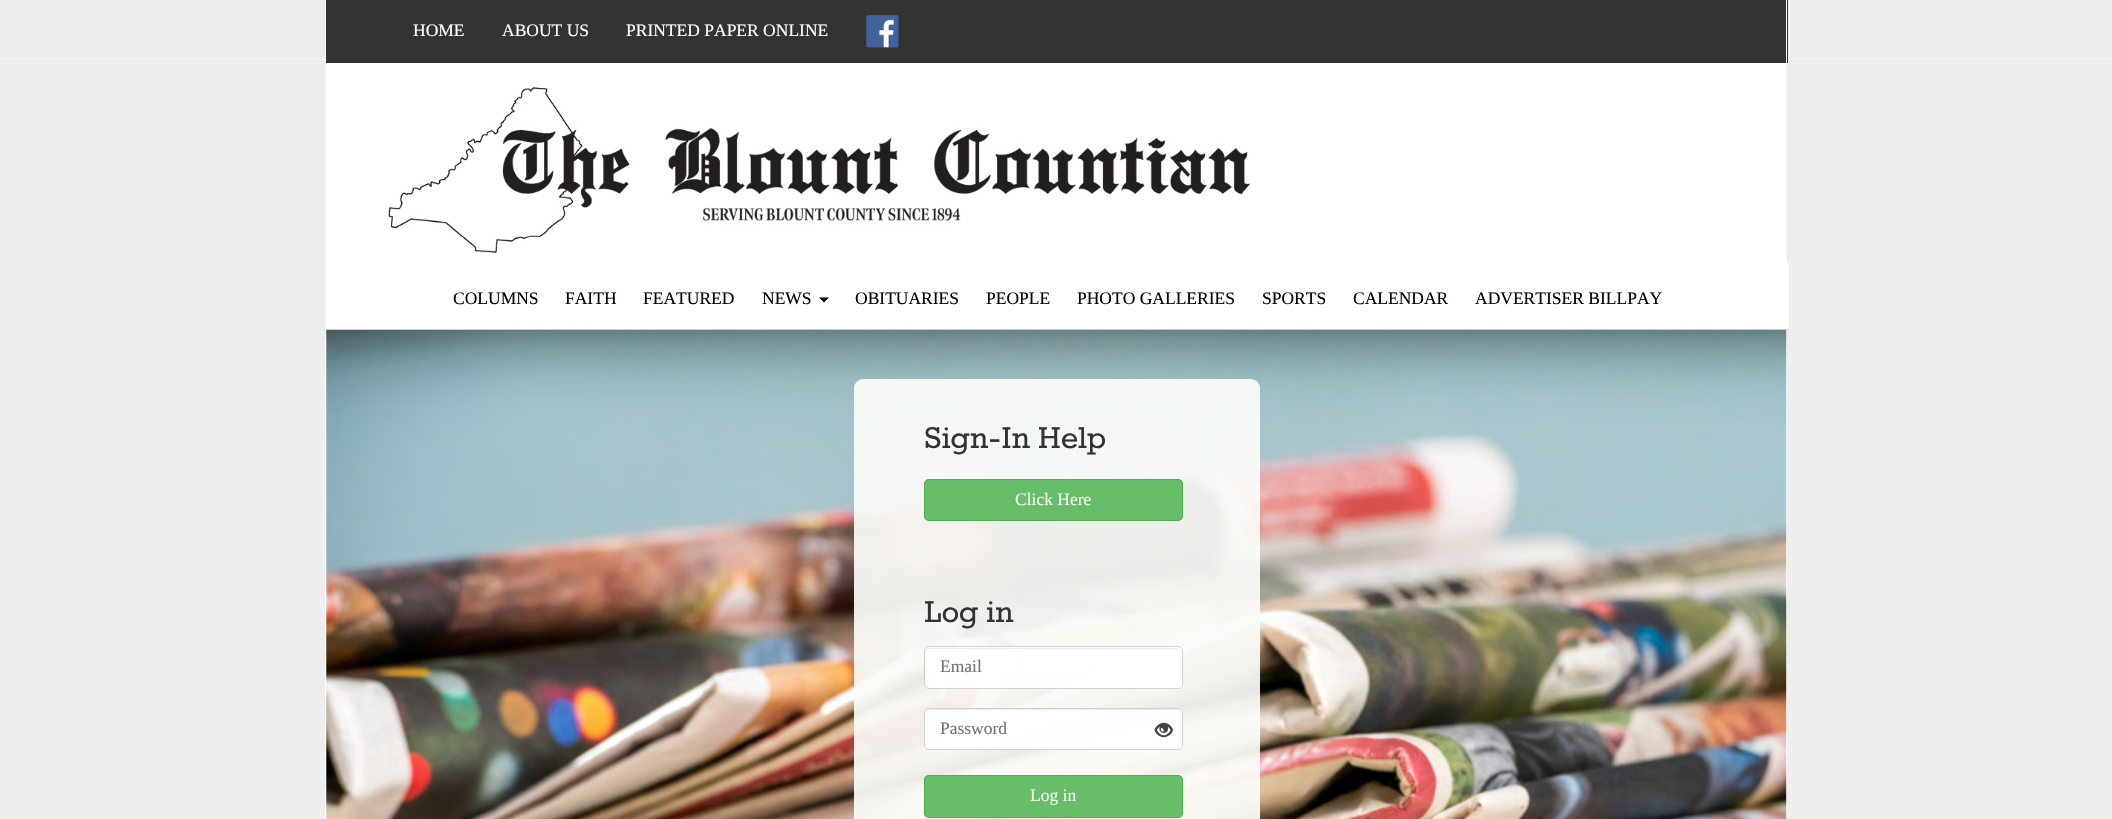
#include "include/core/SkBlurTypes.h"
#include "include/core/SkCanvas.h"
#include "include/core/SkData.h"
#include "include/core/SkFont.h"
#include "include/core/SkFontMgr.h"
#include "include/core/SkImage.h"
#include "include/core/SkMaskFilter.h"
#include "include/core/SkPaint.h"
#include "include/core/SkPathBuilder.h"
#include "include/core/SkTextBlob.h"
#include "include/effects/SkDashPathEffect.h"
#include "include/effects/SkGradientShader.h"
#include "include/utils/SkParsePath.h"

extern sk_sp<SkFontMgr> fontMgr;

void draw(SkCanvas* canvas) {
  SkPaint p;
  p.setAntiAlias(true);
  canvas->clear(SkColorSetRGB(238, 238, 238));
  p.setColor(SK_ColorWHITE);
  canvas->drawRect(SkRect::MakeLTRB(1786, 63, 1787, 819), p);
  canvas->drawRect(SkRect::MakeLTRB(325, 63, 1786, 819), p);
  p.setColor(SkColorSetRGB(231, 231, 231));
  canvas->drawRect(SkRect::MakeLTRB(0, 61, 2112, 62), p);
  p.setColor(SkColorSetRGB(51, 51, 51));
  canvas->drawRect(SkRect::MakeLTRB(326, 0, 1788, 63), p);
  p.setColor(SK_ColorWHITE);
  canvas->drawRect(SkRect::MakeLTRB(1786, 0, 1787, 63), p);
  canvas->drawRect(SkRect::MakeLTRB(325, 0, 326, 63), p);
  canvas->drawImageRect(SkImages::DeferredFromEncodedData(SkData::MakeFromFileName("images/1.png")), SkRect::MakeLTRB(866, 15, 899, 48), SkSamplingOptions());
  canvas->drawImageRect(SkImages::DeferredFromEncodedData(SkData::MakeFromFileName("images/2.png")), SkRect::MakeLTRB(388, 87, 1251, 253), SkSamplingOptions());
  canvas->drawImageRect(SkImages::DeferredFromEncodedData(SkData::MakeFromFileName("images/3.png")), SkRect::MakeLTRB(326, 328, 1787, 819), SkSamplingOptions());
  p.setColor(SkColorSetARGB(247, 255, 255, 255));
  canvas->drawRect(SkRect::MakeLTRB(326, 263, 1789, 329), p);
  p.setColor(SkColorSetRGB(204, 204, 204));
  canvas->drawRect(SkRect::MakeLTRB(326, 329, 1789, 330), p);
  p.setColor(SK_ColorBLACK);
  canvas->drawPath(SkPathBuilder().moveTo(819, 297.5f).lineTo(829, 297.5f).lineTo(824, 302.5f).close().detach(), p);
  p.setColor(SkColorSetARGB(235, 251, 252, 248));
  canvas->drawRoundRect(SkRect::MakeLTRB(854, 379, 1260, 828), 9, 9, p);
  p.setColor(SkColorSetARGB(235, 92, 184, 92));
  canvas->drawRoundRect(SkRect::MakeLTRB(924, 479, 1183, 521), 5, 5, p);
  p.setStyle(SkPaint::kStroke_Style);
  p.setStrokeWidth(1);
  p.setColor(SkColorSetARGB(235, 76, 174, 76));
  canvas->drawRoundRect(SkRect::MakeLTRB(924.5f, 479.5f, 1182.5f, 520.5f), 4.5f, 4.5f, p);
  p.setStyle(SkPaint::kFill_Style);
  p.setColor(SkColorSetARGB(235, 255, 255, 255));
  canvas->drawRoundRect(SkRect::MakeLTRB(924, 646, 1183, 689), 5, 5, p);
  p.setColor(SkColorSetRGB(237, 237, 237));
  canvas->drawPath(SkPathBuilder().moveTo(929, 649).lineTo(1178, 649).cubicTo(1179, 649, 1180, 649, 1180, 650).cubicTo(1180, 649, 1178, 648, 1177, 648).lineTo(929, 648).cubicTo(927, 648, 925, 650, 925, 652).cubicTo(925, 650, 927, 649, 929, 649).close().detach(), p);
  p.setStyle(SkPaint::kStroke_Style);
  p.setColor(SkColorSetARGB(235, 204, 204, 204));
  canvas->drawRoundRect(SkRect::MakeLTRB(924.5f, 646.5f, 1182.5f, 688.5f), 4.5f, 4.5f, p);
  p.setStyle(SkPaint::kFill_Style);
  p.setColor(SkColorSetARGB(235, 255, 255, 255));
  canvas->drawRoundRect(SkRect::MakeLTRB(924, 708, 1183, 750), 5, 5, p);
  p.setColor(SkColorSetRGB(237, 236, 236));
  canvas->drawPath(SkPathBuilder().moveTo(929, 710).lineTo(1178, 710).cubicTo(1180, 710, 1181, 712, 1181, 714).lineTo(1181, 713).cubicTo(1181, 711, 1179, 709, 1177, 709).lineTo(929, 709).cubicTo(927, 709, 925, 711, 925, 713).lineTo(925, 714).cubicTo(925, 712, 927, 710, 929, 710).close().detach(), p);
  p.setStyle(SkPaint::kStroke_Style);
  p.setColor(SkColorSetARGB(235, 204, 204, 204));
  canvas->drawRoundRect(SkRect::MakeLTRB(924.5f, 708.5f, 1182.5f, 749.5f), 4.5f, 4.5f, p);
  canvas->drawImageRect(SkImages::DeferredFromEncodedData(SkData::MakeFromFileName("images/4.png")), SkRect::MakeLTRB(1154, 722, 1173, 738), SkSamplingOptions());
  p.setStyle(SkPaint::kFill_Style);
  p.setColor(SkColorSetARGB(235, 92, 184, 92));
  canvas->drawRoundRect(SkRect::MakeLTRB(924, 775, 1183, 818), 5, 5, p);
  p.setStyle(SkPaint::kStroke_Style);
  p.setColor(SkColorSetARGB(235, 76, 174, 76));
  canvas->drawRoundRect(SkRect::MakeLTRB(924.5f, 775.5f, 1182.5f, 817.5f), 4.5f, 4.5f, p);
  SkFont font1(fontMgr->matchFamilyStyle("Liberation Serif", SkFontStyle::Normal()), 17.5f);
  font1.setSubpixel(true);
  p.setStyle(SkPaint::kFill_Style);
  p.setColor(SK_ColorWHITE);
  canvas->drawString("HOME", 413, 36, font1, p);
  canvas->drawString("ABOUT US", 502, 36, font1, p);
  canvas->drawString("PRINTED PAPER ONLINE", 626, 36, font1, p);
  p.setColor(SK_ColorBLACK);
  canvas->drawString("COLUMNS", 453, 304, font1, p);
  canvas->drawString("FAITH", 565, 304, font1, p);
  canvas->drawString("FEATURED", 643, 304, font1, p);
  canvas->drawString("NEWS", 762, 304, font1, p);
  canvas->drawString("OBITUARIES", 855, 304, font1, p);
  canvas->drawString("PEOPLE", 986, 304, font1, p);
  canvas->drawString("PHOTO GALLERIES", 1077, 304, font1, p);
  canvas->drawString("SPORTS", 1262, 304, font1, p);
  canvas->drawString("CALENDAR", 1353, 304, font1, p);
  canvas->drawString("ADVERTISER BILLPAY", 1475, 304, font1, p);
  SkFont font2(fontMgr->matchFamilyStyle("Rokkitt", SkFontStyle::Normal()), 36.75f);
  font2.setSubpixel(true);
  p.setColor(SkColorSetRGB(51, 51, 51));
  canvas->drawString("Sign-In Help", 924, 448, font2, p);
  p.setColor(SkColorSetRGB(243, 250, 243));
  canvas->drawString("Click Here", 1015, 505, font1, p);
  p.setColor(SkColorSetRGB(51, 51, 51));
  canvas->drawString("Log in", 924, 622, font2, p);
  p.setColor(SkColorSetRGB(114, 114, 114));
  canvas->drawString("Email", 940, 672, font1, p);
  canvas->drawString("Password", 940, 734, font1, p);
  p.setColor(SkColorSetRGB(243, 250, 243));
  canvas->drawString("Log in", 1030, 801, font1, p);
}
